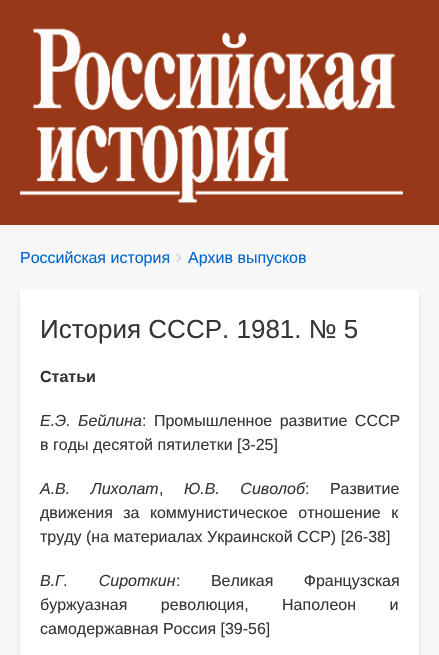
#include "include/core/SkBlurTypes.h"
#include "include/core/SkCanvas.h"
#include "include/core/SkData.h"
#include "include/core/SkFont.h"
#include "include/core/SkFontMgr.h"
#include "include/core/SkImage.h"
#include "include/core/SkMaskFilter.h"
#include "include/core/SkPaint.h"
#include "include/core/SkPathBuilder.h"
#include "include/core/SkTextBlob.h"
#include "include/effects/SkDashPathEffect.h"
#include "include/effects/SkGradientShader.h"
#include "include/utils/SkParsePath.h"

extern sk_sp<SkFontMgr> fontMgr;

void draw(SkCanvas* canvas) {
  SkPaint p;
  p.setAntiAlias(true);
  auto spacedText = [&](const char* s, float x, float y, const SkFont& font, const SkPaint& ink, float letter, float word) {
    std::vector<SkGlyphID> glyphs(font.countText(s, strlen(s), SkTextEncoding::kUTF8));
    std::vector<float> xs(glyphs.size());
    font.textToGlyphs(s, strlen(s), SkTextEncoding::kUTF8, glyphs);
    font.getXPos(glyphs, xs, x);
    float extra = 0;
    for (size_t i = 0; i < glyphs.size(); i++) {
      xs[i] += extra;
      extra += letter + word * (glyphs[i] == font.unicharToGlyph(' '));
    }
    canvas->drawTextBlob(SkTextBlob::MakeFromPosHGlyphs(glyphs, xs, y, font), 0, 0, ink);
  };
  canvas->clear(SkColorSetRGB(247, 247, 247));
  p.setColor(SkColorSetRGB(152, 56, 24));
  canvas->drawRect(SkRect::MakeLTRB(0, 0, 439, 225), p);
  canvas->drawImageRect(SkImages::DeferredFromEncodedData(SkData::MakeFromFileName("images/1.png")), SkRect::MakeLTRB(20, 28, 403, 204), SkSamplingOptions());
  canvas->drawImageRect(SkImages::DeferredFromEncodedData(SkData::MakeFromFileName("images/2.png")), SkRect::MakeLTRB(176, 253, 182, 263), SkSamplingOptions());
  p.setColor(SkColorSetARGB(26, 0, 0, 0));
  p.setMaskFilter(SkMaskFilter::MakeBlur(kNormal_SkBlurStyle, 2));
  canvas->drawRoundRect(SkRect::MakeLTRB(20, 293, 419, 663), 2, 2, p);
  p.setMaskFilter(nullptr);
  p.setColor(SK_ColorWHITE);
  canvas->drawRoundRect(SkRect::MakeLTRB(20, 290, 419, 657), 2, 2, p);
  SkFont font1(fontMgr->matchFamilyStyle("Liberation Sans", SkFontStyle::Normal()), 16);
  font1.setSubpixel(true);
  p.setColor(SkColorSetRGB(0, 102, 204));
  canvas->drawString("Российская история", 20, 263, font1, p);
  canvas->drawString("Архив выпусков", 188, 263, font1, p);
  SkFont font2(fontMgr->matchFamilyStyle("Liberation Sans", SkFontStyle::Normal()), 26);
  font2.setSubpixel(true);
  p.setColor(SkColorSetRGB(54, 54, 54));
  canvas->drawString("История СССР. 1981. № 5", 40, 338, font2, p);
  SkFont font3(fontMgr->matchFamilyStyle("Liberation Sans", SkFontStyle::Bold()), 16);
  font3.setSubpixel(true);
  canvas->drawString("Статьи", 40, 382, font3, p);
  SkFont font4(fontMgr->matchFamilyStyle("Liberation Sans", SkFontStyle::Italic()), 16);
  font4.setSubpixel(true);
  spacedText("Е.Э. Бейлина", 40, 426, font4, p, 0, 3);
  spacedText(": Промышленное развитие СССР", 142, 426, font1, p, 0, 3);
  canvas->drawString("в годы десятой пятилетки [3-25]", 40, 450, font1, p);
  spacedText("А.В. Лихолат", 40, 494, font4, p, 0, 16);
  canvas->drawString(",", 159, 494, font1, p);
  spacedText("Ю.В. Сиволоб", 184, 494, font4, p, 0, 16);
  spacedText(": Развитие", 305, 494, font1, p, 0, 16);
  spacedText("движения за коммунистическое отношение к", 40, 518, font1, p, 0, 6);
  canvas->drawString("труду (на материалах Украинской ССР) [26-38]", 40, 542, font1, p);
  spacedText("В.Г. Сироткин", 40, 586, font4, p, 0, 26);
  spacedText(": Великая Французская", 176, 586, font1, p, 0, 26);
  spacedText("буржуазная революция, Наполеон и", 40, 610, font1, p, 0, 29);
  canvas->drawString("самодержавная Россия [39-56]", 40, 634, font1, p);
}
